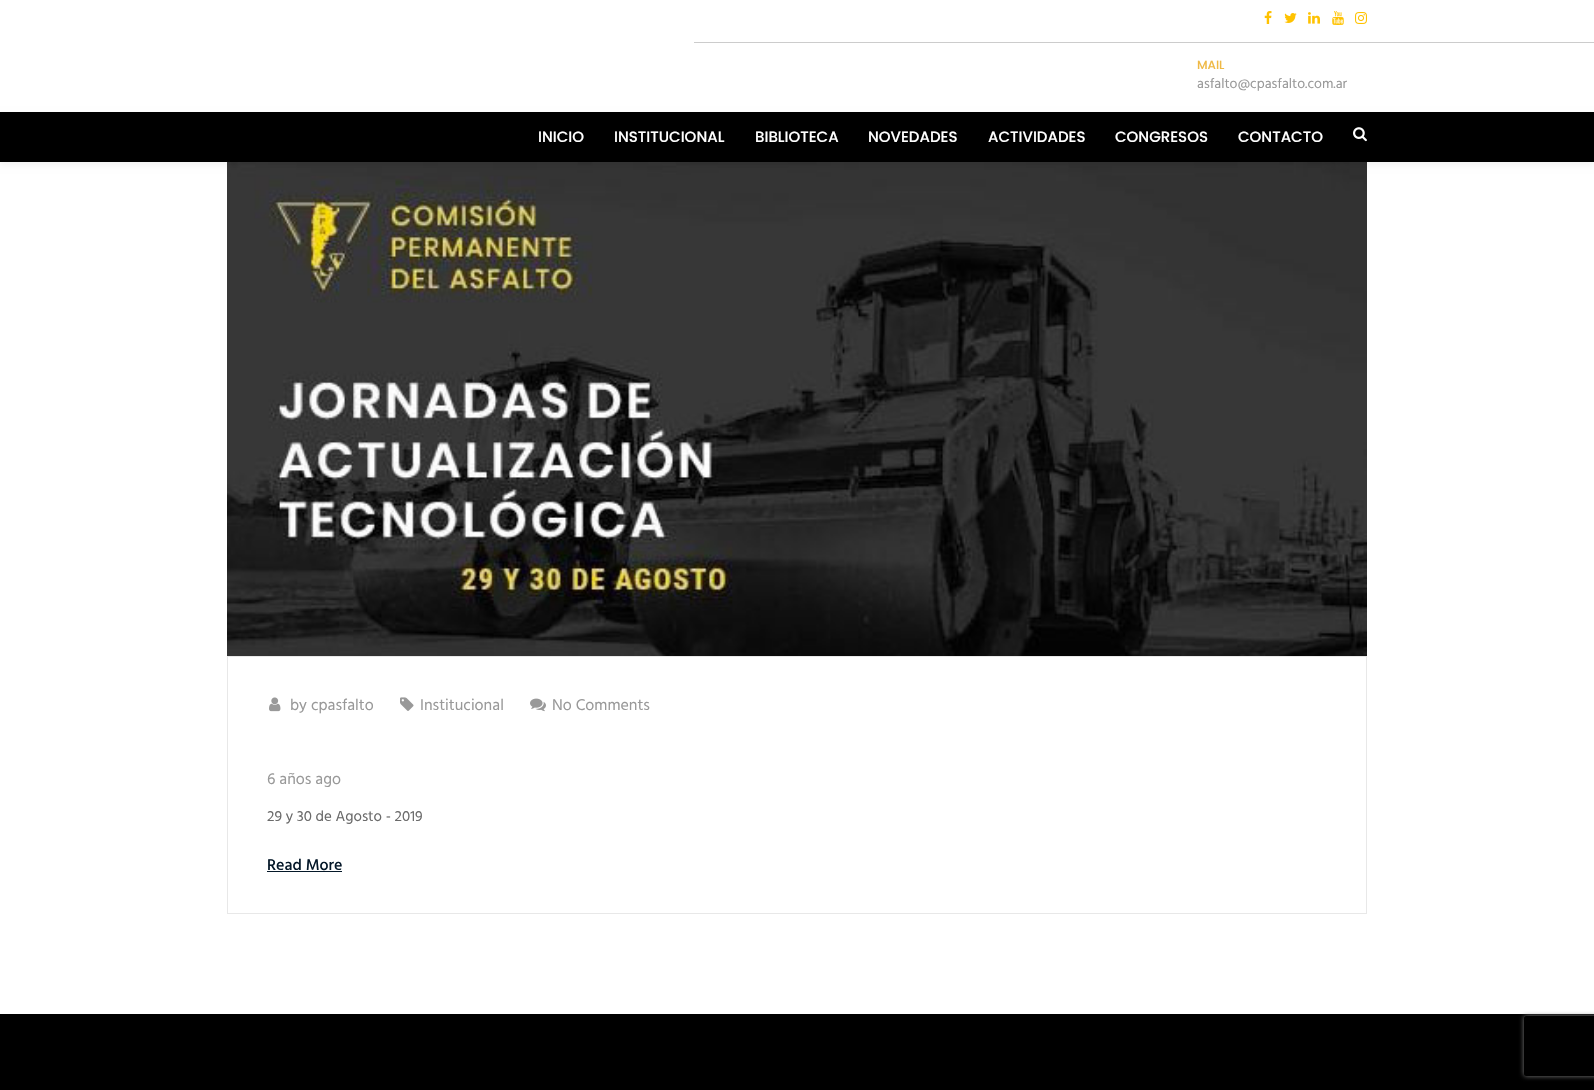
#include "include/core/SkBlurTypes.h"
#include "include/core/SkCanvas.h"
#include "include/core/SkData.h"
#include "include/core/SkFont.h"
#include "include/core/SkFontMgr.h"
#include "include/core/SkImage.h"
#include "include/core/SkMaskFilter.h"
#include "include/core/SkPaint.h"
#include "include/core/SkPathBuilder.h"
#include "include/core/SkTextBlob.h"
#include "include/effects/SkDashPathEffect.h"
#include "include/effects/SkGradientShader.h"
#include "include/utils/SkParsePath.h"

extern sk_sp<SkFontMgr> fontMgr;

void draw(SkCanvas* canvas) {
  SkPaint p;
  p.setAntiAlias(true);
  canvas->clear(SK_ColorWHITE);
  canvas->drawImageRect(SkImages::DeferredFromEncodedData(SkData::MakeFromFileName("images/1.png")), SkRect::MakeLTRB(1264, 11, 1272, 24), SkSamplingOptions());
  canvas->drawImageRect(SkImages::DeferredFromEncodedData(SkData::MakeFromFileName("images/2.png")), SkRect::MakeLTRB(1284, 13, 1297, 23), SkSamplingOptions());
  canvas->drawImageRect(SkImages::DeferredFromEncodedData(SkData::MakeFromFileName("images/3.png")), SkRect::MakeLTRB(1308, 12, 1320, 24), SkSamplingOptions());
  canvas->drawImageRect(SkImages::DeferredFromEncodedData(SkData::MakeFromFileName("images/4.png")), SkRect::MakeLTRB(1332, 11, 1344, 25), SkSamplingOptions());
  canvas->drawImageRect(SkImages::DeferredFromEncodedData(SkData::MakeFromFileName("images/5.png")), SkRect::MakeLTRB(1355, 12, 1367, 24), SkSamplingOptions());
  p.setColor(SkColorSetRGB(204, 204, 204));
  canvas->drawRect(SkRect::MakeLTRB(694, 42, 1594, 43), p);
  canvas->drawImageRect(SkImages::DeferredFromEncodedData(SkData::MakeFromFileName("images/7.png")), SkRect::MakeLTRB(227, 162, 1367, 656), SkSamplingOptions());
  p.setColor(SkColorSetARGB(13, 0, 0, 0));
  p.setMaskFilter(SkMaskFilter::MakeBlur(kNormal_SkBlurStyle, 3));
  canvas->drawRect(SkRect::MakeLTRB(0, 115, 1594, 165), p);
  p.setMaskFilter(nullptr);
  p.setColor(SK_ColorBLACK);
  canvas->drawRect(SkRect::MakeLTRB(0, 112, 1594, 162), p);
  canvas->drawImageRect(SkImages::DeferredFromEncodedData(SkData::MakeFromFileName("images/6.png")), SkRect::MakeLTRB(1353, 127, 1367, 142), SkSamplingOptions());
  p.setStyle(SkPaint::kStroke_Style);
  p.setStrokeWidth(1);
  p.setColor(SkColorSetRGB(232, 232, 232));
  canvas->drawRect(SkRect::MakeLTRB(227.5f, 656.5f, 1366.5f, 913.5f), p);
  canvas->drawImageRect(SkImages::DeferredFromEncodedData(SkData::MakeFromFileName("images/8.png")), SkRect::MakeLTRB(269, 697, 281, 712), SkSamplingOptions());
  canvas->drawImageRect(SkImages::DeferredFromEncodedData(SkData::MakeFromFileName("images/9.png")), SkRect::MakeLTRB(400, 697, 414, 711), SkSamplingOptions());
  canvas->drawImageRect(SkImages::DeferredFromEncodedData(SkData::MakeFromFileName("images/10.png")), SkRect::MakeLTRB(530, 698, 546, 712), SkSamplingOptions());
  p.setStyle(SkPaint::kFill_Style);
  p.setColor(SkColorSetRGB(5, 24, 41));
  canvas->drawRect(SkRect::MakeLTRB(267, 871, 342, 872), p);
  p.setColor(SK_ColorBLACK);
  canvas->drawRect(SkRect::MakeLTRB(0, 1014, 1594, 1090), p);
  canvas->save();
  canvas->clipPath(SkPathBuilder(SkPathFillType::kEvenOdd).moveTo(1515, 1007).lineTo(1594, 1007).lineTo(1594, 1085).lineTo(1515, 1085).close().moveTo(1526, 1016).lineTo(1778, 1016).cubicTo(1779, 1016, 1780, 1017, 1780, 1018).lineTo(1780, 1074).cubicTo(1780, 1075, 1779, 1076, 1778, 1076).lineTo(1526, 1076).cubicTo(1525, 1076, 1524, 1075, 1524, 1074).lineTo(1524, 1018).cubicTo(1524, 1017, 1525, 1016, 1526, 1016).close().detach(), true);
  p.setColor(SkColorSetRGB(128, 128, 128));
  p.setMaskFilter(SkMaskFilter::MakeBlur(kNormal_SkBlurStyle, 2.5f));
  canvas->drawRoundRect(SkRect::MakeLTRB(1524, 1016, 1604, 1076), 2, 2, p);
  p.setMaskFilter(nullptr);
  canvas->restore();
  SkFont font1(fontMgr->matchFamilyStyle("Poppins", SkFontStyle(500, SkFontStyle::kNormal_Width, SkFontStyle::kUpright_Slant)), 12);
  font1.setSubpixel(true);
  p.setColor(SkColorSetRGB(239, 185, 69));
  canvas->drawString("MAIL", 1197, 69, font1, p);
  SkFont font2(fontMgr->matchFamilyStyle("Hind", SkFontStyle::Normal()), 14);
  font2.setSubpixel(true);
  p.setColor(SkColorSetRGB(153, 153, 153));
  canvas->drawString("asfalto@cpasfalto.com.ar", 1197, 88, font2, p);
  SkFont font3(fontMgr->matchFamilyStyle("Poppins", SkFontStyle(500, SkFontStyle::kNormal_Width, SkFontStyle::kUpright_Slant)), 15);
  font3.setSubpixel(true);
  p.setColor(SK_ColorWHITE);
  canvas->drawString("INICIO", 538, 142, font3, p);
  canvas->drawString("INSTITUCIONAL", 614, 142, font3, p);
  canvas->drawString("BIBLIOTECA", 755, 142, font3, p);
  canvas->drawString("NOVEDADES", 868, 142, font3, p);
  canvas->drawString("ACTIVIDADES", 988, 142, font3, p);
  canvas->drawString("CONGRESOS", 1115, 142, font3, p);
  canvas->drawString("CONTACTO", 1238, 142, font3, p);
  SkFont font4(fontMgr->matchFamilyStyle("Hind", SkFontStyle::Normal()), 16);
  font4.setSubpixel(true);
  p.setColor(SkColorSetRGB(153, 153, 153));
  canvas->drawString("by cpasfalto", 290, 710, font4, p);
  canvas->drawString("Institucional", 420, 710, font4, p);
  canvas->drawString("No Comments", 552, 710, font4, p);
  canvas->drawString("6 años ago", 267, 784, font4, p);
  SkFont font5(fontMgr->matchFamilyStyle("Hind", SkFontStyle::Normal()), 15);
  font5.setSubpixel(true);
  p.setColor(SkColorSetRGB(106, 106, 106));
  canvas->drawString("29 y 30 de Agosto - 2019", 267, 821, font5, p);
  SkFont font6(fontMgr->matchFamilyStyle("Hind", SkFontStyle(500, SkFontStyle::kNormal_Width, SkFontStyle::kUpright_Slant)), 16);
  font6.setSubpixel(true);
  p.setColor(SkColorSetRGB(5, 24, 41));
  canvas->drawString("Read More", 267, 870, font6, p);
}
